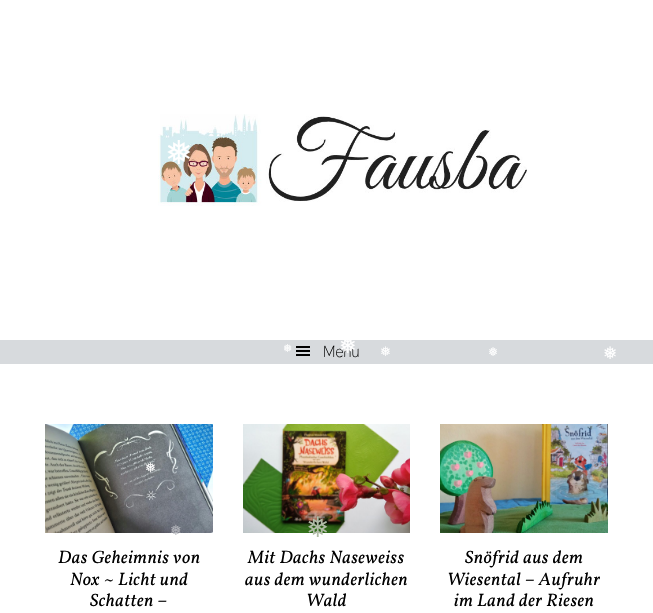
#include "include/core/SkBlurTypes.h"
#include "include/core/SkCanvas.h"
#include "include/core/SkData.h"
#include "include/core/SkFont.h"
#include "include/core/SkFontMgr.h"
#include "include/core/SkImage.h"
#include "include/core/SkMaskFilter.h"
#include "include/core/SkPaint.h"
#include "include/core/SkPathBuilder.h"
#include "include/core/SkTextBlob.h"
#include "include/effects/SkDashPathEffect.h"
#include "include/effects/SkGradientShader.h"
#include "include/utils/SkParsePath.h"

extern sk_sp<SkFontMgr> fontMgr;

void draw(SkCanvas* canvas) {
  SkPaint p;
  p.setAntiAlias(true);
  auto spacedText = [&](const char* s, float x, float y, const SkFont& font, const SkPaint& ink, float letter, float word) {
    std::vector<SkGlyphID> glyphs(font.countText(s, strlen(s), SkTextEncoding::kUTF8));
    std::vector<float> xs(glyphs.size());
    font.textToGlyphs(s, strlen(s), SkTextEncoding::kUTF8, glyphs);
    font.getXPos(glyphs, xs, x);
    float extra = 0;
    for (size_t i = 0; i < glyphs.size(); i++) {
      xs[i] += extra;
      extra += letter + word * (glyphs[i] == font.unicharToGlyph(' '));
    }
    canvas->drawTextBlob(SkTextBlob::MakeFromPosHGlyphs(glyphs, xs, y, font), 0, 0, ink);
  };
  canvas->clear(SK_ColorWHITE);
  canvas->drawImageRect(SkImages::DeferredFromEncodedData(SkData::MakeFromFileName("images/1.png")), SkRect::MakeLTRB(158, 114, 527, 206), SkSamplingOptions());
  p.setColor(SkColorSetRGB(215, 218, 221));
  canvas->drawRect(SkRect::MakeLTRB(0, 340, 653, 364), p);
  canvas->drawImageRect(SkImages::DeferredFromEncodedData(SkData::MakeFromFileName("images/2.png")), SkRect::MakeLTRB(296, 346, 310, 356), SkSamplingOptions());
  canvas->drawImageRect(SkImages::DeferredFromEncodedData(SkData::MakeFromFileName("images/3.png")), SkRect::MakeLTRB(45, 424, 213, 533), SkSamplingOptions());
  canvas->drawImageRect(SkImages::DeferredFromEncodedData(SkData::MakeFromFileName("images/4.png")), SkRect::MakeLTRB(243, 424, 410, 533), SkSamplingOptions());
  canvas->drawImageRect(SkImages::DeferredFromEncodedData(SkData::MakeFromFileName("images/5.png")), SkRect::MakeLTRB(440, 424, 608, 533), SkSamplingOptions());
  SkFont font1(fontMgr->matchFamilyStyle("DejaVu Sans", SkFontStyle::Normal()), 33);
  font1.setSubpixel(true);
  p.setColor(SK_ColorWHITE);
  canvas->drawString("❅", 165, 164, font1, p);
  SkFont font2(fontMgr->matchFamilyStyle("DejaVu Sans", SkFontStyle::Normal()), 11);
  font2.setSubpixel(true);
  canvas->drawString("❅", 283, 352, font2, p);
  SkFont font3(fontMgr->matchFamilyStyle("DejaVu Sans", SkFontStyle::Normal()), 13);
  font3.setSubpixel(true);
  canvas->drawString("❅", 380, 356, font3, p);
  SkFont font4(fontMgr->matchFamilyStyle("DejaVu Sans", SkFontStyle::Normal()), 12);
  font4.setSubpixel(true);
  canvas->drawString("❅", 488, 356, font4, p);
  SkFont font5(fontMgr->matchFamilyStyle("DejaVu Sans", SkFontStyle::Normal()), 17);
  font5.setSubpixel(true);
  canvas->drawString("❅", 603, 359, font5, p);
  canvas->drawString("❅", 145, 472, font3, p);
  SkFont font6(fontMgr->matchFamilyStyle("DejaVu Sans", SkFontStyle::Normal()), 14);
  font6.setSubpixel(true);
  p.setColor(SkColorSetRGB(179, 181, 187));
  canvas->drawString("❅", 170, 535, font6, p);
  SkFont font7(fontMgr->matchFamilyStyle("DejaVu Sans", SkFontStyle::Normal()), 28);
  font7.setSubpixel(true);
  p.setColor(SkColorSetRGB(176, 187, 166));
  canvas->drawString("❅", 306, 537, font7, p);
  SkFont font8(fontMgr->matchFamilyStyle("Thasadith", SkFontStyle::Normal()), 16);
  font8.setSubpixel(true);
  p.setColor(SK_ColorBLACK);
  canvas->drawString("Menu", 323, 357, font8, p);
  SkFont font9(fontMgr->matchFamilyStyle("DejaVu Sans", SkFontStyle::Normal()), 21);
  font9.setSubpixel(true);
  p.setColor(SK_ColorWHITE);
  canvas->drawString("❅", 339, 353, font9, p);
  SkFont font10(fontMgr->matchFamilyStyle("Vollkorn", SkFontStyle::Italic()), 18);
  font10.setSubpixel(true);
  p.setColor(SK_ColorBLACK);
  spacedText("Das Geheimnis von", 58, 563, font10, p, 0.5f, 0);
  spacedText("Nox ~ Licht und", 70, 585, font10, p, 0.5f, 0);
  spacedText("Schatten –", 90, 606, font10, p, 0.5f, 0);
  spacedText("Mit Dachs Naseweiss", 248, 563, font10, p, 0.5f, 0);
  spacedText("aus dem wunderlichen", 245, 585, font10, p, 0.5f, 0);
  spacedText("Wald", 306, 606, font10, p, 0.5f, 0);
  spacedText("Snöfrid aus dem", 465, 563, font10, p, 0.5f, 0);
  spacedText("Wiesental – Aufruhr", 447, 585, font10, p, 0.5f, 0);
  spacedText("im Land der Riesen", 454, 606, font10, p, 0.5f, 0);
}
